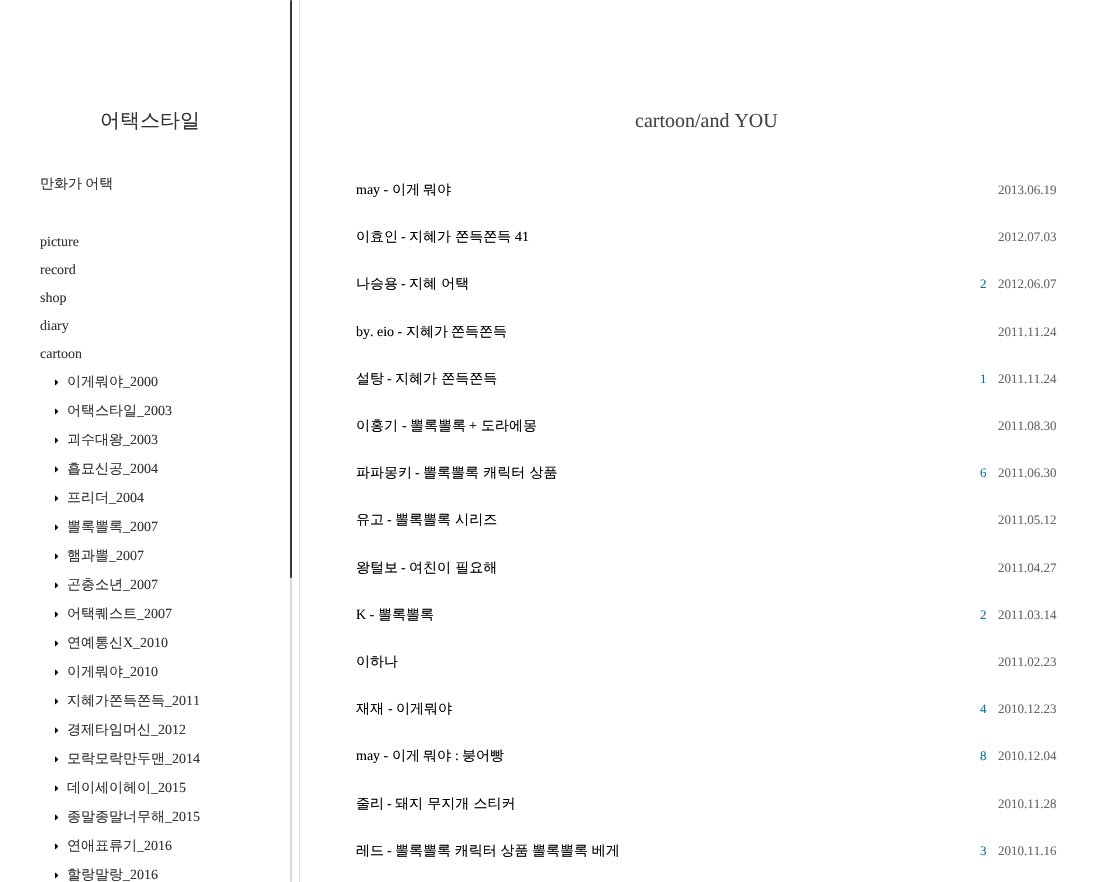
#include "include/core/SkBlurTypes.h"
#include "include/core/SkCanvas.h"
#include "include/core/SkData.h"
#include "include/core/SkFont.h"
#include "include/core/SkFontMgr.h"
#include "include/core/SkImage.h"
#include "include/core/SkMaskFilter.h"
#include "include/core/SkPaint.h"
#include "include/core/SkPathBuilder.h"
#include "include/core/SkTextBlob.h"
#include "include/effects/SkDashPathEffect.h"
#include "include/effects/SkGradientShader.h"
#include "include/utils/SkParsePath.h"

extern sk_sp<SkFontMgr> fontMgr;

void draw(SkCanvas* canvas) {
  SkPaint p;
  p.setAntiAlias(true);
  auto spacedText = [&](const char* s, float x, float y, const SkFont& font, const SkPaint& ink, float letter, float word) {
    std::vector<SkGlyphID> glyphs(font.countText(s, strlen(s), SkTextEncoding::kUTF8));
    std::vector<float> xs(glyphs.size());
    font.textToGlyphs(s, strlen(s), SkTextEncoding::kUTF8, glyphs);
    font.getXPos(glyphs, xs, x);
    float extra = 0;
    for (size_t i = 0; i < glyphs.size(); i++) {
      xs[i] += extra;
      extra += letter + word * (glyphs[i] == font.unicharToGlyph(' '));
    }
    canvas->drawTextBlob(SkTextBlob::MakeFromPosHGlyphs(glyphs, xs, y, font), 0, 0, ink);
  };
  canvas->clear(SK_ColorWHITE);
  p.setColor(SkColorSetRGB(221, 221, 221));
  canvas->drawRect(SkRect::MakeLTRB(299, 0, 300, 882), p);
  canvas->drawImageRect(SkImages::DeferredFromEncodedData(SkData::MakeFromFileName("images/1.png")), SkRect::MakeLTRB(55, 379, 59, 386), SkSamplingOptions());
  canvas->drawImageRect(SkImages::DeferredFromEncodedData(SkData::MakeFromFileName("images/1.png")), SkRect::MakeLTRB(55, 408, 59, 415), SkSamplingOptions());
  canvas->drawImageRect(SkImages::DeferredFromEncodedData(SkData::MakeFromFileName("images/1.png")), SkRect::MakeLTRB(55, 437, 59, 444), SkSamplingOptions());
  canvas->drawImageRect(SkImages::DeferredFromEncodedData(SkData::MakeFromFileName("images/1.png")), SkRect::MakeLTRB(55, 466, 59, 473), SkSamplingOptions());
  canvas->drawImageRect(SkImages::DeferredFromEncodedData(SkData::MakeFromFileName("images/1.png")), SkRect::MakeLTRB(55, 495, 59, 502), SkSamplingOptions());
  canvas->drawImageRect(SkImages::DeferredFromEncodedData(SkData::MakeFromFileName("images/1.png")), SkRect::MakeLTRB(55, 524, 59, 531), SkSamplingOptions());
  canvas->drawImageRect(SkImages::DeferredFromEncodedData(SkData::MakeFromFileName("images/1.png")), SkRect::MakeLTRB(55, 553, 59, 560), SkSamplingOptions());
  canvas->drawImageRect(SkImages::DeferredFromEncodedData(SkData::MakeFromFileName("images/1.png")), SkRect::MakeLTRB(55, 582, 59, 589), SkSamplingOptions());
  canvas->drawImageRect(SkImages::DeferredFromEncodedData(SkData::MakeFromFileName("images/1.png")), SkRect::MakeLTRB(55, 611, 59, 618), SkSamplingOptions());
  canvas->drawImageRect(SkImages::DeferredFromEncodedData(SkData::MakeFromFileName("images/1.png")), SkRect::MakeLTRB(55, 640, 59, 647), SkSamplingOptions());
  canvas->drawImageRect(SkImages::DeferredFromEncodedData(SkData::MakeFromFileName("images/1.png")), SkRect::MakeLTRB(55, 669, 59, 676), SkSamplingOptions());
  canvas->drawImageRect(SkImages::DeferredFromEncodedData(SkData::MakeFromFileName("images/1.png")), SkRect::MakeLTRB(55, 698, 59, 705), SkSamplingOptions());
  canvas->drawImageRect(SkImages::DeferredFromEncodedData(SkData::MakeFromFileName("images/1.png")), SkRect::MakeLTRB(55, 727, 59, 734), SkSamplingOptions());
  canvas->drawImageRect(SkImages::DeferredFromEncodedData(SkData::MakeFromFileName("images/1.png")), SkRect::MakeLTRB(55, 756, 59, 763), SkSamplingOptions());
  canvas->drawImageRect(SkImages::DeferredFromEncodedData(SkData::MakeFromFileName("images/1.png")), SkRect::MakeLTRB(55, 785, 59, 792), SkSamplingOptions());
  canvas->drawImageRect(SkImages::DeferredFromEncodedData(SkData::MakeFromFileName("images/1.png")), SkRect::MakeLTRB(55, 814, 59, 821), SkSamplingOptions());
  canvas->drawImageRect(SkImages::DeferredFromEncodedData(SkData::MakeFromFileName("images/1.png")), SkRect::MakeLTRB(55, 843, 59, 850), SkSamplingOptions());
  canvas->drawImageRect(SkImages::DeferredFromEncodedData(SkData::MakeFromFileName("images/1.png")), SkRect::MakeLTRB(55, 872, 59, 879), SkSamplingOptions());
  p.setColor(SkColorSetRGB(217, 217, 217));
  canvas->drawRoundRect(SkRect::MakeLTRB(290, 0, 292, 882), 1, 1, p);
  p.setColor(SkColorSetARGB(191, 0, 0, 0));
  canvas->drawRoundRect(SkRect::MakeLTRB(290, 0, 292, 578), 1, 1, p);
  SkFont font1(fontMgr->matchFamilyStyle("WenQuanYi Zen Hei", SkFontStyle(500, SkFontStyle::kNormal_Width, SkFontStyle::kUpright_Slant)), 20);
  font1.setSubpixel(true);
  p.setColor(SkColorSetRGB(51, 51, 51));
  canvas->drawString("어택스타일", 100, 127, font1, p);
  SkFont font2(fontMgr->matchFamilyStyle("WenQuanYi Zen Hei", SkFontStyle(500, SkFontStyle::kNormal_Width, SkFontStyle::kUpright_Slant)), 14);
  font2.setSubpixel(true);
  spacedText("만화가 어택", 40, 188, font2, p, 0, -1);
  SkFont font3(fontMgr->matchFamilyStyle("Liberation Serif", SkFontStyle::Normal()), 14);
  font3.setSubpixel(true);
  canvas->drawString("picture", 40, 246, font3, p);
  canvas->drawString("record", 40, 274, font3, p);
  canvas->drawString("shop", 40, 302, font3, p);
  canvas->drawString("diary", 40, 330, font3, p);
  canvas->drawString("cartoon", 40, 358, font3, p);
  canvas->drawString("이게뭐야", 67, 386, font2, p);
  canvas->drawString("_2000", 123, 386, font3, p);
  canvas->drawString("어택스타일", 67, 415, font2, p);
  canvas->drawString("_2003", 137, 415, font3, p);
  canvas->drawString("괴수대왕", 67, 444, font2, p);
  canvas->drawString("_2003", 123, 444, font3, p);
  canvas->drawString("흡묘신공", 67, 473, font2, p);
  canvas->drawString("_2004", 123, 473, font3, p);
  canvas->drawString("프리더", 67, 502, font2, p);
  canvas->drawString("_2004", 109, 502, font3, p);
  canvas->drawString("뽈록뽈록", 67, 531, font2, p);
  canvas->drawString("_2007", 123, 531, font3, p);
  canvas->drawString("햄과뽈", 67, 560, font2, p);
  canvas->drawString("_2007", 109, 560, font3, p);
  canvas->drawString("곤충소년", 67, 589, font2, p);
  canvas->drawString("_2007", 123, 589, font3, p);
  canvas->drawString("어택퀘스트", 67, 618, font2, p);
  canvas->drawString("_2007", 137, 618, font3, p);
  canvas->drawString("연예통신", 67, 647, font2, p);
  canvas->drawString("X_2010", 123, 647, font3, p);
  canvas->drawString("이게뭐야", 67, 676, font2, p);
  canvas->drawString("_2010", 123, 676, font3, p);
  canvas->drawString("지혜가쫀득쫀득", 67, 705, font2, p);
  canvas->drawString("_2011", 165, 705, font3, p);
  canvas->drawString("경제타임머신", 67, 734, font2, p);
  canvas->drawString("_2012", 151, 734, font3, p);
  canvas->drawString("모락모락만두맨", 67, 763, font2, p);
  canvas->drawString("_2014", 165, 763, font3, p);
  canvas->drawString("데이세이헤이", 67, 792, font2, p);
  canvas->drawString("_2015", 151, 792, font3, p);
  canvas->drawString("종말종말너무해", 67, 821, font2, p);
  canvas->drawString("_2015", 165, 821, font3, p);
  canvas->drawString("연애표류기", 67, 850, font2, p);
  canvas->drawString("_2016", 137, 850, font3, p);
  canvas->drawString("할랑말랑", 67, 879, font2, p);
  canvas->drawString("_2016", 123, 879, font3, p);
  SkFont font4(fontMgr->matchFamilyStyle("Liberation Serif", SkFontStyle::Normal()), 20);
  font4.setSubpixel(true);
  p.setColor(SkColorSetRGB(68, 68, 68));
  canvas->drawString("cartoon/and YOU", 635, 127, font4, p);
  p.setColor(SK_ColorBLACK);
  canvas->drawString("may -", 356, 194, font3, p);
  canvas->drawString("이게", 392, 194, font2, p);
  canvas->drawString("뭐야", 423, 194, font2, p);
  SkFont font5(fontMgr->matchFamilyStyle("Liberation Serif", SkFontStyle::Normal()), 13);
  font5.setSubpixel(true);
  p.setColor(SkColorSetRGB(102, 102, 102));
  canvas->drawString("2013.06.19", 998, 194, font5, p);
  p.setColor(SK_ColorBLACK);
  canvas->drawString("이효인", 356, 241, font2, p);
  canvas->drawString("-", 401, 241, font3, p);
  canvas->drawString("지혜가 쫀득쫀득", 409, 241, font2, p);
  canvas->drawString("41", 515, 241, font3, p);
  p.setColor(SkColorSetRGB(102, 102, 102));
  canvas->drawString("2012.07.03", 998, 241, font5, p);
  p.setColor(SK_ColorBLACK);
  canvas->drawString("나승용", 356, 288, font2, p);
  canvas->drawString("-", 401, 288, font3, p);
  canvas->drawString("지혜 어택", 409, 288, font2, p);
  p.setColor(SkColorSetRGB(0, 119, 170));
  canvas->drawString("2", 980, 288, font5, p);
  p.setColor(SkColorSetRGB(102, 102, 102));
  canvas->drawString("2012.06.07", 998, 288, font5, p);
  p.setColor(SK_ColorBLACK);
  canvas->drawString("by. eio -", 356, 336, font3, p);
  canvas->drawString("지혜가", 406, 336, font2, p);
  canvas->drawString("쫀득쫀득", 451, 336, font2, p);
  p.setColor(SkColorSetRGB(102, 102, 102));
  canvas->drawString("2011.11.24", 998, 336, font5, p);
  p.setColor(SK_ColorBLACK);
  canvas->drawString("설탕", 356, 383, font2, p);
  canvas->drawString("-", 387, 383, font3, p);
  canvas->drawString("지혜가 쫀득쫀득", 395, 383, font2, p);
  p.setColor(SkColorSetRGB(0, 119, 170));
  canvas->drawString("1", 980, 383, font5, p);
  p.setColor(SkColorSetRGB(102, 102, 102));
  canvas->drawString("2011.11.24", 998, 383, font5, p);
  p.setColor(SK_ColorBLACK);
  canvas->drawString("이홍기", 356, 430, font2, p);
  canvas->drawString("-", 402, 430, font3, p);
  canvas->drawString("뽈록뽈록", 410, 430, font2, p);
  canvas->drawString("+", 469, 430, font3, p);
  canvas->drawString("도라에몽", 481, 430, font2, p);
  p.setColor(SkColorSetRGB(102, 102, 102));
  canvas->drawString("2011.08.30", 998, 430, font5, p);
  p.setColor(SK_ColorBLACK);
  canvas->drawString("파파몽키", 356, 477, font2, p);
  canvas->drawString("-", 415, 477, font3, p);
  canvas->drawString("뽈록뽈록 캐릭터 상품", 423, 477, font2, p);
  p.setColor(SkColorSetRGB(0, 119, 170));
  canvas->drawString("6", 980, 477, font5, p);
  p.setColor(SkColorSetRGB(102, 102, 102));
  canvas->drawString("2011.06.30", 998, 477, font5, p);
  p.setColor(SK_ColorBLACK);
  canvas->drawString("유고", 356, 524, font2, p);
  canvas->drawString("-", 387, 524, font3, p);
  canvas->drawString("뽈록뽈록 시리즈", 395, 524, font2, p);
  p.setColor(SkColorSetRGB(102, 102, 102));
  canvas->drawString("2011.05.12", 998, 524, font5, p);
  p.setColor(SK_ColorBLACK);
  canvas->drawString("왕털보", 356, 572, font2, p);
  canvas->drawString("-", 401, 572, font3, p);
  canvas->drawString("여친이 필요해", 409, 572, font2, p);
  p.setColor(SkColorSetRGB(102, 102, 102));
  canvas->drawString("2011.04.27", 998, 572, font5, p);
  p.setColor(SK_ColorBLACK);
  canvas->drawString("K -", 356, 619, font3, p);
  canvas->drawString("뽈록뽈록", 378, 619, font2, p);
  p.setColor(SkColorSetRGB(0, 119, 170));
  canvas->drawString("2", 980, 619, font5, p);
  p.setColor(SkColorSetRGB(102, 102, 102));
  canvas->drawString("2011.03.14", 998, 619, font5, p);
  p.setColor(SK_ColorBLACK);
  canvas->drawString("이하나", 356, 666, font2, p);
  p.setColor(SkColorSetRGB(102, 102, 102));
  canvas->drawString("2011.02.23", 998, 666, font5, p);
  p.setColor(SK_ColorBLACK);
  canvas->drawString("재재", 356, 713, font2, p);
  canvas->drawString("-", 388, 713, font3, p);
  canvas->drawString("이게뭐야", 396, 713, font2, p);
  p.setColor(SkColorSetRGB(0, 119, 170));
  canvas->drawString("4", 980, 713, font5, p);
  p.setColor(SkColorSetRGB(102, 102, 102));
  canvas->drawString("2010.12.23", 998, 713, font5, p);
  p.setColor(SK_ColorBLACK);
  canvas->drawString("may -", 356, 760, font3, p);
  canvas->drawString("이게", 392, 760, font2, p);
  canvas->drawString("뭐야", 423, 760, font2, p);
  canvas->drawString(":", 455, 760, font3, p);
  canvas->drawString("붕어빵", 462, 760, font2, p);
  p.setColor(SkColorSetRGB(0, 119, 170));
  canvas->drawString("8", 980, 760, font5, p);
  p.setColor(SkColorSetRGB(102, 102, 102));
  canvas->drawString("2010.12.04", 998, 760, font5, p);
  p.setColor(SK_ColorBLACK);
  canvas->drawString("줄리", 356, 808, font2, p);
  canvas->drawString("-", 387, 808, font3, p);
  canvas->drawString("돼지 무지개 스티커", 395, 808, font2, p);
  p.setColor(SkColorSetRGB(102, 102, 102));
  canvas->drawString("2010.11.28", 998, 808, font5, p);
  p.setColor(SK_ColorBLACK);
  canvas->drawString("레드", 356, 855, font2, p);
  canvas->drawString("-", 387, 855, font3, p);
  spacedText("뽈록뽈록 캐릭터 상품 뽈록뽈록 베게", 395, 855, font2, p, 0, -0.5f);
  p.setColor(SkColorSetRGB(0, 119, 170));
  canvas->drawString("3", 980, 855, font5, p);
  p.setColor(SkColorSetRGB(102, 102, 102));
  canvas->drawString("2010.11.16", 998, 855, font5, p);
}
